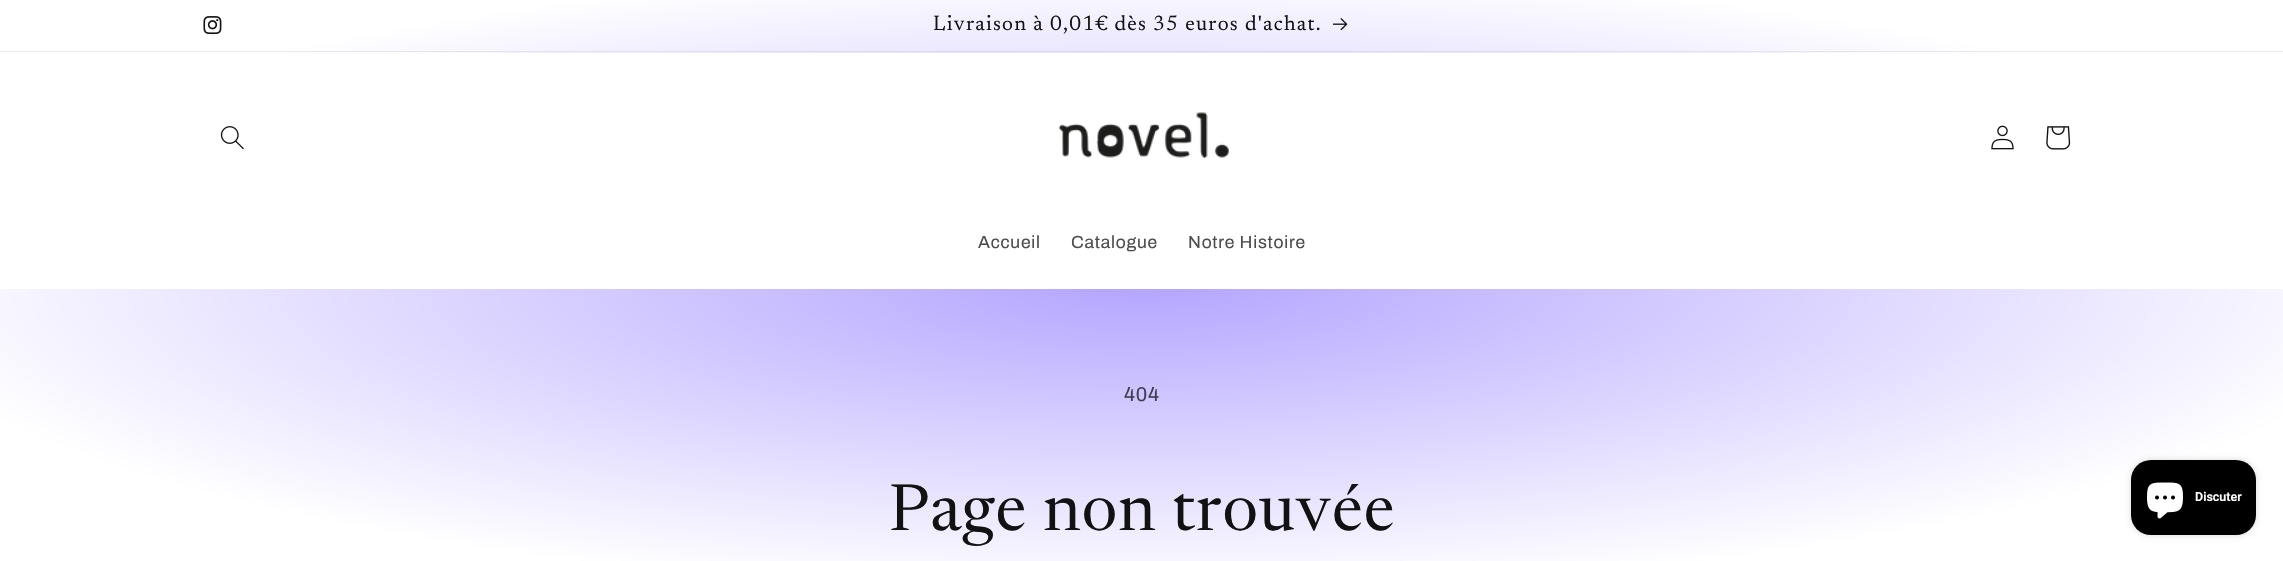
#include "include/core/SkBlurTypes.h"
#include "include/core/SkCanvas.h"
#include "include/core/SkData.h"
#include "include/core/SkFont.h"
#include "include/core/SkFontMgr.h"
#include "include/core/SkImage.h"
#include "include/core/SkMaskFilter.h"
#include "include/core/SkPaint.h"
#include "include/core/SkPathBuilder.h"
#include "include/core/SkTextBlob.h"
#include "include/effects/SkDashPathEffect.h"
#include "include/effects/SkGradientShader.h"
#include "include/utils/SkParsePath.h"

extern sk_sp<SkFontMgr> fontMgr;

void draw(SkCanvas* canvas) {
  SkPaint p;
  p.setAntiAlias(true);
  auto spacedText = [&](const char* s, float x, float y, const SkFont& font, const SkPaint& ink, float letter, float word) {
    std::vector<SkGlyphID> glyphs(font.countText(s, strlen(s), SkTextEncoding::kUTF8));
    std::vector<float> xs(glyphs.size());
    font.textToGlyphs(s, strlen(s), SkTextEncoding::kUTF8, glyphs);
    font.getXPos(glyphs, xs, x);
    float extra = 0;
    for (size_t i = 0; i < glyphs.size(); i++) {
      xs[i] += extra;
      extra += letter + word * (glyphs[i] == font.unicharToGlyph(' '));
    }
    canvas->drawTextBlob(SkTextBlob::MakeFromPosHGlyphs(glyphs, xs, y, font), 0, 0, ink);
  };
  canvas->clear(SK_ColorWHITE);
  {
    const SkColor colors[] = {SkColorSetRGB(179, 164, 255), SK_ColorWHITE, SK_ColorWHITE};
    const float stops[] = {0, 0.79f, 0.97f};
    SkMatrix m = SkMatrix::Translate(1142, 281).preScale(1615, 397);
    p.setShader(SkGradientShader::MakeRadial({0, 0}, 1, colors, stops, 3, SkTileMode::kClamp, 0, &m));
    p.setAlpha(255);
  }
  canvas->drawRect(SkRect::MakeLTRB(0, 0, 2283, 561), p);
  {
    const SkColor colors[] = {SkColorSetRGB(166, 152, 236), SkColorSetRGB(236, 236, 236), SkColorSetRGB(236, 236, 236)};
    const float stops[] = {0, 0.79f, 0.97f};
    SkMatrix m = SkMatrix::Translate(1142, 281).preScale(1615, 397);
    p.setShader(SkGradientShader::MakeRadial({0, 0}, 1, colors, stops, 3, SkTileMode::kClamp, 0, &m));
    p.setAlpha(255);
  }
  canvas->drawRect(SkRect::MakeLTRB(0, 51, 2283, 52), p);
  canvas->drawImageRect(SkImages::DeferredFromEncodedData(SkData::MakeFromFileName("images/1.png")), SkRect::MakeLTRB(203, 16, 222, 35), SkSamplingOptions());
  canvas->drawImageRect(SkImages::DeferredFromEncodedData(SkData::MakeFromFileName("images/2.png")), SkRect::MakeLTRB(1333, 18, 1348, 31), SkSamplingOptions());
  p.setShader(nullptr);
  p.setColor(SK_ColorWHITE);
  canvas->drawRect(SkRect::MakeLTRB(0, 53, 2283, 289), p);
  canvas->drawImageRect(SkImages::DeferredFromEncodedData(SkData::MakeFromFileName("images/3.png")), SkRect::MakeLTRB(220, 126, 244, 150), SkSamplingOptions());
  canvas->drawImageRect(SkImages::DeferredFromEncodedData(SkData::MakeFromFileName("images/4.png")), SkRect::MakeLTRB(1058, 112, 1229, 159), SkSamplingOptions());
  canvas->drawImageRect(SkImages::DeferredFromEncodedData(SkData::MakeFromFileName("images/5.png")), SkRect::MakeLTRB(1991, 125, 2014, 150), SkSamplingOptions());
  canvas->drawImageRect(SkImages::DeferredFromEncodedData(SkData::MakeFromFileName("images/6.png")), SkRect::MakeLTRB(2046, 126, 2071, 150), SkSamplingOptions());
  p.setColor(SkColorSetARGB(38, 0, 0, 0));
  p.setMaskFilter(SkMaskFilter::MakeBlur(kNormal_SkBlurStyle, 3));
  canvas->drawRoundRect(SkRect::MakeLTRB(2131, 460, 2256, 535), 20, 20, p);
  p.setMaskFilter(nullptr);
  p.setColor(SK_ColorBLACK);
  canvas->drawRoundRect(SkRect::MakeLTRB(2131, 460, 2256, 535), 20, 20, p);
  canvas->drawImageRect(SkImages::DeferredFromEncodedData(SkData::MakeFromFileName("images/7.png")), SkRect::MakeLTRB(2147, 482, 2183, 519), SkSamplingOptions());
  SkFont font1(fontMgr->matchFamilyStyle("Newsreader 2", SkFontStyle::Normal()), 21.1f);
  font1.setSubpixel(true);
  p.setColor(SkColorSetRGB(18, 18, 18));
  spacedText("Livraison à 0,01€ dès 35 euros d'achat.", 933, 30, font1, p, 1.25f, 0);
  SkFont font2(fontMgr->matchFamilyStyle("Archivo", SkFontStyle::Normal()), 17.5f);
  font2.setSubpixel(true);
  p.setColor(SkColorSetRGB(77, 77, 77));
  spacedText("Accueil", 978, 248, font2, p, 0.75f, 0);
  spacedText("Catalogue", 1071, 248, font2, p, 0.75f, 0);
  spacedText("Notre Histoire", 1188, 248, font2, p, 0.75f, 0);
  SkFont font3(fontMgr->matchFamilyStyle("Archivo", SkFontStyle::Normal()), 20);
  font3.setSubpixel(true);
  p.setColor(SkColorSetRGB(65, 63, 77));
  spacedText("404", 1124, 401, font3, p, 0.75f, 0);
  SkFont font4(fontMgr->matchFamilyStyle("Newsreader", SkFontStyle::Normal()), 65);
  font4.setSubpixel(true);
  p.setColor(SkColorSetRGB(18, 18, 18));
  spacedText("Page non trouvée", 889, 530, font4, p, 1, 0);
  SkFont font5(fontMgr->matchFamilyStyle("Roboto", SkFontStyle(600, SkFontStyle::kNormal_Width, SkFontStyle::kUpright_Slant)), 12.5f);
  font5.setSubpixel(true);
  p.setColor(SK_ColorWHITE);
  canvas->drawString("Discuter", 2195, 501, font5, p);
}
